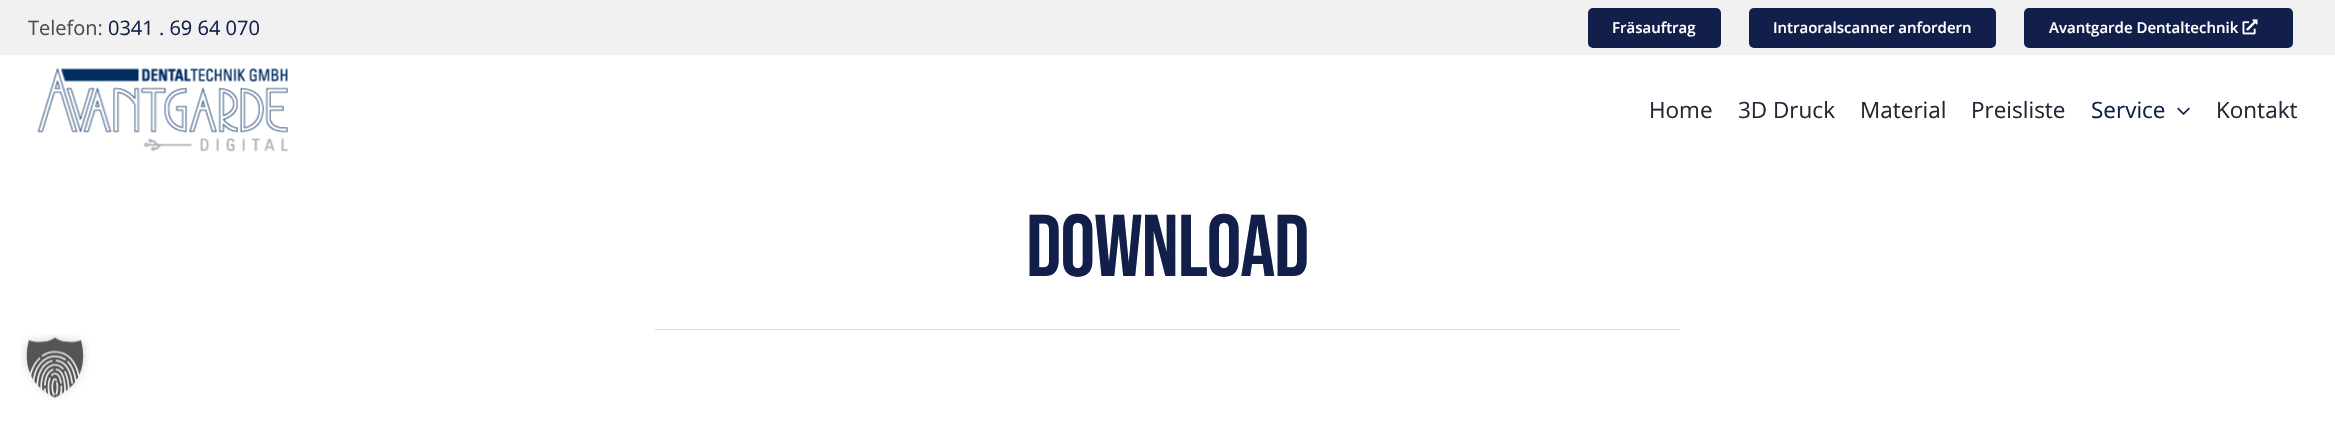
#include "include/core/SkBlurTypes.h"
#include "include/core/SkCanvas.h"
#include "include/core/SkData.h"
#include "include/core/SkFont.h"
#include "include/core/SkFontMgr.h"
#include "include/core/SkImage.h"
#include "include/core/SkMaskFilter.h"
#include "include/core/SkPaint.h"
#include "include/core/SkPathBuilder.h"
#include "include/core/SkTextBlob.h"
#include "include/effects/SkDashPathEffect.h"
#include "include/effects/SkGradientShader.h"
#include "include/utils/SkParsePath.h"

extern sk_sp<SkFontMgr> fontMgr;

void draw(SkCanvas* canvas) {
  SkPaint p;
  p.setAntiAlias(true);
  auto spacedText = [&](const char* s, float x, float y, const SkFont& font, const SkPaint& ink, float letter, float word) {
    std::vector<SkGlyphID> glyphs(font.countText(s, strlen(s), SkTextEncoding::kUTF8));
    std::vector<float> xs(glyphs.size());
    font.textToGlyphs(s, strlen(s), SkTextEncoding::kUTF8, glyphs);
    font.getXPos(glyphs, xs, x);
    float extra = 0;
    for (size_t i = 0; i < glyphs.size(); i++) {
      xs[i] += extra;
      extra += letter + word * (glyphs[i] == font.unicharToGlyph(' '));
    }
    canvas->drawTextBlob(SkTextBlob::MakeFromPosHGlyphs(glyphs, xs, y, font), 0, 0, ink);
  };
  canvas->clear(SK_ColorWHITE);
  p.setColor(SkColorSetRGB(241, 241, 241));
  canvas->drawRect(SkRect::MakeLTRB(0, 0, 2335, 55), p);
  p.setColor(SkColorSetRGB(18, 31, 74));
  canvas->drawRoundRect(SkRect::MakeLTRB(1588, 8, 1721, 48), 5, 5, p);
  canvas->drawRoundRect(SkRect::MakeLTRB(1749, 8, 1996, 48), 5, 5, p);
  canvas->drawRoundRect(SkRect::MakeLTRB(2024, 8, 2293, 48), 5, 5, p);
  canvas->drawImageRect(SkImages::DeferredFromEncodedData(SkData::MakeFromFileName("images/1.png")), SkRect::MakeLTRB(2242, 19, 2258, 35), SkSamplingOptions());
  canvas->drawImageRect(SkImages::DeferredFromEncodedData(SkData::MakeFromFileName("images/2.png")), SkRect::MakeLTRB(37, 67, 288, 152), SkSamplingOptions());
  canvas->drawImageRect(SkImages::DeferredFromEncodedData(SkData::MakeFromFileName("images/3.png")), SkRect::MakeLTRB(2177, 107, 2190, 115), SkSamplingOptions());
  p.setColor(SkColorSetRGB(219, 220, 220));
  canvas->drawRect(SkRect::MakeLTRB(655, 329, 1680, 330), p);
  canvas->drawImageRect(SkImages::DeferredFromEncodedData(SkData::MakeFromFileName("images/4.png")), SkRect::MakeLTRB(21, 334, 89, 400), SkSamplingOptions());
  SkFont font1(fontMgr->matchFamilyStyle("Open Sans", SkFontStyle::Normal()), 20);
  font1.setSubpixel(true);
  p.setColor(SkColorSetRGB(74, 78, 87));
  canvas->drawString("Telefon:", 28, 35, font1, p);
  p.setColor(SkColorSetRGB(18, 31, 74));
  canvas->drawString("0341 . 69 64 070", 108, 35, font1, p);
  SkFont font2(fontMgr->matchFamilyStyle("Open Sans", SkFontStyle(600, SkFontStyle::kNormal_Width, SkFontStyle::kUpright_Slant)), 15);
  font2.setSubpixel(true);
  p.setColor(SK_ColorWHITE);
  canvas->drawString("Fräsauftrag", 1612, 33, font2, p);
  canvas->drawString("Intraoralscanner anfordern", 1773, 33, font2, p);
  canvas->drawString("Avantgarde Dentaltechnik", 2049, 33, font2, p);
  SkFont font3(fontMgr->matchFamilyStyle("Open Sans", SkFontStyle::Normal()), 22.5f);
  font3.setSubpixel(true);
  p.setColor(SkColorSetRGB(33, 41, 52));
  canvas->drawString("Home", 1649, 118, font3, p);
  canvas->drawString("3D Druck", 1738, 118, font3, p);
  canvas->drawString("Material", 1860, 118, font3, p);
  canvas->drawString("Preisliste", 1971, 118, font3, p);
  p.setColor(SkColorSetRGB(18, 31, 74));
  canvas->drawString("Service", 2091, 118, font3, p);
  p.setColor(SkColorSetRGB(33, 41, 52));
  canvas->drawString("Kontakt", 2216, 118, font3, p);
  SkFont font4(fontMgr->matchFamilyStyle("Bebas Neue", SkFontStyle::Normal()), 87.5f);
  font4.setSubpixel(true);
  p.setColor(SkColorSetRGB(18, 31, 74));
  spacedText("Download", 1026, 276, font4, p, -1.25f, 0);
}
